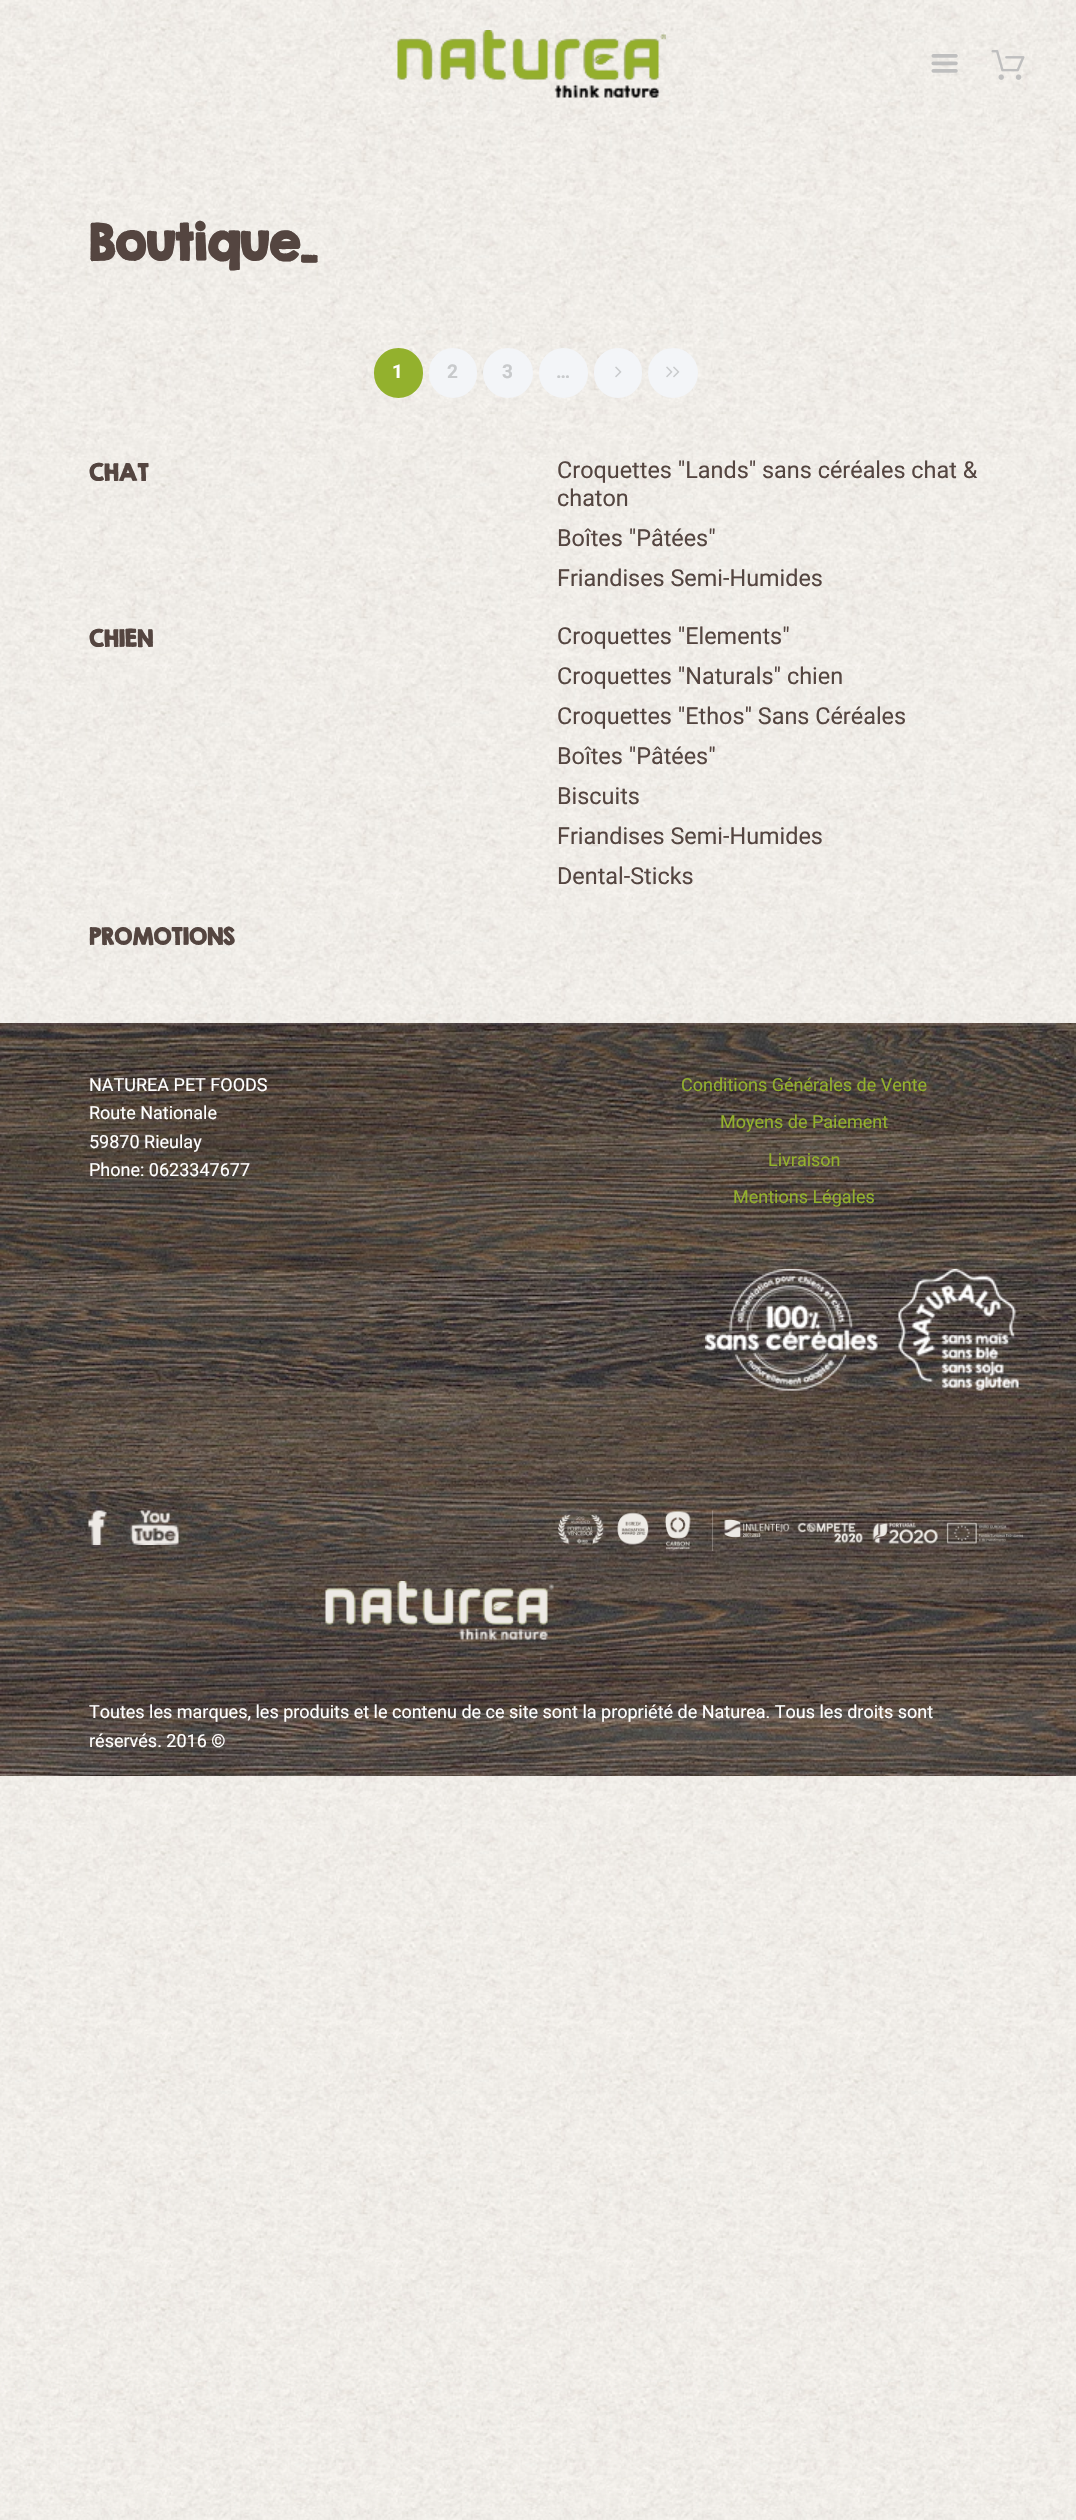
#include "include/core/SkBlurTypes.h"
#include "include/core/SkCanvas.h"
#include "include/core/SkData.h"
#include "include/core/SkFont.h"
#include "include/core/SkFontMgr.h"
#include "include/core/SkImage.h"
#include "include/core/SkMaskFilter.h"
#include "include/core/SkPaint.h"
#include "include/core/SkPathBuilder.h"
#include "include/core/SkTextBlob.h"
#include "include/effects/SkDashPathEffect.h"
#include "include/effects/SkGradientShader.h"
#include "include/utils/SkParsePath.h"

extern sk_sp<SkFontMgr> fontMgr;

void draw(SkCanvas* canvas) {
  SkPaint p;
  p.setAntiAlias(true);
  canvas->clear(SK_ColorWHITE);
  canvas->drawImageRect(SkImages::DeferredFromEncodedData(SkData::MakeFromFileName("images/1.png")), SkRect::MakeLTRB(0, 0, 1076, 2520), SkSamplingOptions());
  canvas->drawImageRect(SkImages::DeferredFromEncodedData(SkData::MakeFromFileName("images/2.png")), SkRect::MakeLTRB(397, 30, 666, 98), SkSamplingOptions());
  canvas->drawImageRect(SkImages::DeferredFromEncodedData(SkData::MakeFromFileName("images/3.png")), SkRect::MakeLTRB(931, 54, 958, 73), SkSamplingOptions());
  canvas->drawImageRect(SkImages::DeferredFromEncodedData(SkData::MakeFromFileName("images/4.png")), SkRect::MakeLTRB(991, 50, 1025, 80), SkSamplingOptions());
  p.setColor(SkColorSetRGB(147, 177, 45));
  canvas->drawRoundRect(SkRect::MakeLTRB(375.5f, 349.5f, 421.5f, 396.5f), 23, 23, p);
  p.setStyle(SkPaint::kStroke_Style);
  p.setStrokeWidth(3);
  canvas->drawRoundRect(SkRect::MakeLTRB(375.5f, 349.5f, 421.5f, 396.5f), 23, 23, p);
  p.setStyle(SkPaint::kFill_Style);
  p.setColor(SkColorSetRGB(243, 245, 248));
  canvas->drawRoundRect(SkRect::MakeLTRB(430.5f, 349.5f, 475.5f, 396.5f), 22.5f, 22.5f, p);
  p.setStyle(SkPaint::kStroke_Style);
  canvas->drawRoundRect(SkRect::MakeLTRB(430.5f, 349.5f, 475.5f, 396.5f), 22.5f, 22.5f, p);
  p.setStyle(SkPaint::kFill_Style);
  canvas->drawCircle(508, 373, 23.5f, p);
  p.setStyle(SkPaint::kStroke_Style);
  canvas->drawCircle(508, 373, 23.5f, p);
  p.setStyle(SkPaint::kFill_Style);
  canvas->drawRoundRect(SkRect::MakeLTRB(540.5f, 349.5f, 586.5f, 396.5f), 23, 23, p);
  p.setStyle(SkPaint::kStroke_Style);
  canvas->drawRoundRect(SkRect::MakeLTRB(540.5f, 349.5f, 586.5f, 396.5f), 23, 23, p);
  p.setStyle(SkPaint::kFill_Style);
  canvas->drawRoundRect(SkRect::MakeLTRB(595.5f, 349.5f, 640.5f, 396.5f), 22.5f, 22.5f, p);
  p.setStyle(SkPaint::kStroke_Style);
  canvas->drawRoundRect(SkRect::MakeLTRB(595.5f, 349.5f, 640.5f, 396.5f), 22.5f, 22.5f, p);
  canvas->drawImageRect(SkImages::DeferredFromEncodedData(SkData::MakeFromFileName("images/5.png")), SkRect::MakeLTRB(615, 366, 622, 378), SkSamplingOptions());
  p.setStyle(SkPaint::kFill_Style);
  canvas->drawCircle(673, 373, 23.5f, p);
  p.setStyle(SkPaint::kStroke_Style);
  canvas->drawCircle(673, 373, 23.5f, p);
  canvas->drawImageRect(SkImages::DeferredFromEncodedData(SkData::MakeFromFileName("images/6.png")), SkRect::MakeLTRB(666, 366, 680, 378), SkSamplingOptions());
  canvas->drawImageRect(SkImages::DeferredFromEncodedData(SkData::MakeFromFileName("images/7.png")), SkRect::MakeLTRB(0, 1023, 1076, 1776), SkSamplingOptions());
  canvas->drawImageRect(SkImages::DeferredFromEncodedData(SkData::MakeFromFileName("images/8.png")), SkRect::MakeLTRB(705, 1269, 1019, 1391), SkSamplingOptions());
  canvas->drawImageRect(SkImages::DeferredFromEncodedData(SkData::MakeFromFileName("images/9.png")), SkRect::MakeLTRB(88, 1510, 107, 1545), SkSamplingOptions());
  canvas->drawImageRect(SkImages::DeferredFromEncodedData(SkData::MakeFromFileName("images/10.png")), SkRect::MakeLTRB(130, 1510, 179, 1545), SkSamplingOptions());
  canvas->drawImageRect(SkImages::DeferredFromEncodedData(SkData::MakeFromFileName("images/11.png")), SkRect::MakeLTRB(558, 1510, 1023, 1551), SkSamplingOptions());
  canvas->drawImageRect(SkImages::DeferredFromEncodedData(SkData::MakeFromFileName("images/12.png")), SkRect::MakeLTRB(325, 1581, 554, 1640), SkSamplingOptions());
  SkFont font1(fontMgr->matchFamilyStyle("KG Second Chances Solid", SkFontStyle::Bold()), 45);
  font1.setSubpixel(true);
  p.setStyle(SkPaint::kFill_Style);
  p.setColor(SkColorSetRGB(84, 69, 64));
  canvas->drawString("Boutique_", 89, 261, font1, p);
  SkFont font2(fontMgr->matchFamilyStyle("Roboto", SkFontStyle::Bold()), 19);
  font2.setSubpixel(true);
  p.setColor(SK_ColorWHITE);
  canvas->drawString("1", 392, 378, font2, p);
  p.setColor(SkColorSetRGB(200, 202, 204));
  canvas->drawString("2", 447, 378, font2, p);
  canvas->drawString("3", 502, 378, font2, p);
  canvas->drawString("…", 556, 378, font2, p);
  SkFont font3(fontMgr->matchFamilyStyle("KG Second Chances Solid", SkFontStyle::Bold()), 21);
  font3.setSubpixel(true);
  p.setColor(SkColorSetRGB(84, 69, 64));
  canvas->drawString("CHAT", 89, 481, font3, p);
  SkFont font4(fontMgr->matchFamilyStyle("Roboto", SkFontStyle::Normal()), 23.4f);
  font4.setSubpixel(true);
  canvas->drawString("Croquettes \"Lands\" sans céréales chat &", 557, 478, font4, p);
  canvas->drawString("chaton", 557, 506, font4, p);
  canvas->drawString("Boîtes \"Pâtées\"", 557, 546, font4, p);
  canvas->drawString("Friandises Semi-Humides", 557, 586, font4, p);
  canvas->drawString("CHIEN", 89, 647, font3, p);
  canvas->drawString("Croquettes \"Elements\"", 557, 644, font4, p);
  canvas->drawString("Croquettes \"Naturals\" chien", 557, 684, font4, p);
  canvas->drawString("Croquettes \"Ethos\" Sans Céréales", 557, 724, font4, p);
  canvas->drawString("Boîtes \"Pâtées\"", 557, 764, font4, p);
  canvas->drawString("Biscuits", 557, 804, font4, p);
  canvas->drawString("Friandises Semi-Humides", 557, 844, font4, p);
  canvas->drawString("Dental-Sticks", 557, 884, font4, p);
  canvas->drawString("PROMOTIONS", 89, 945, font3, p);
  SkFont font5(fontMgr->matchFamilyStyle("Roboto", SkFontStyle::Normal()), 18);
  font5.setSubpixel(true);
  p.setColor(SK_ColorWHITE);
  canvas->drawString("NATUREA PET FOODS", 89, 1091, font5, p);
  canvas->drawString("Route Nationale", 89, 1119, font5, p);
  canvas->drawString("59870 Rieulay", 89, 1148, font5, p);
  canvas->drawString("Phone: 0623347677", 89, 1176, font5, p);
  p.setColor(SkColorSetRGB(147, 177, 45));
  canvas->drawString("Conditions Générales de Vente", 681, 1091, font5, p);
  canvas->drawString("Moyens de Paiement", 720, 1128, font5, p);
  canvas->drawString("Livraison", 768, 1166, font5, p);
  canvas->drawString("Mentions Légales", 733, 1203, font5, p);
  p.setColor(SK_ColorWHITE);
  canvas->drawString("Toutes les marques, les produits et le contenu de ce site sont la propriété de Naturea. Tous les droits sont", 89, 1718, font5, p);
  canvas->drawString("réservés. 2016 ©", 89, 1747, font5, p);
}
